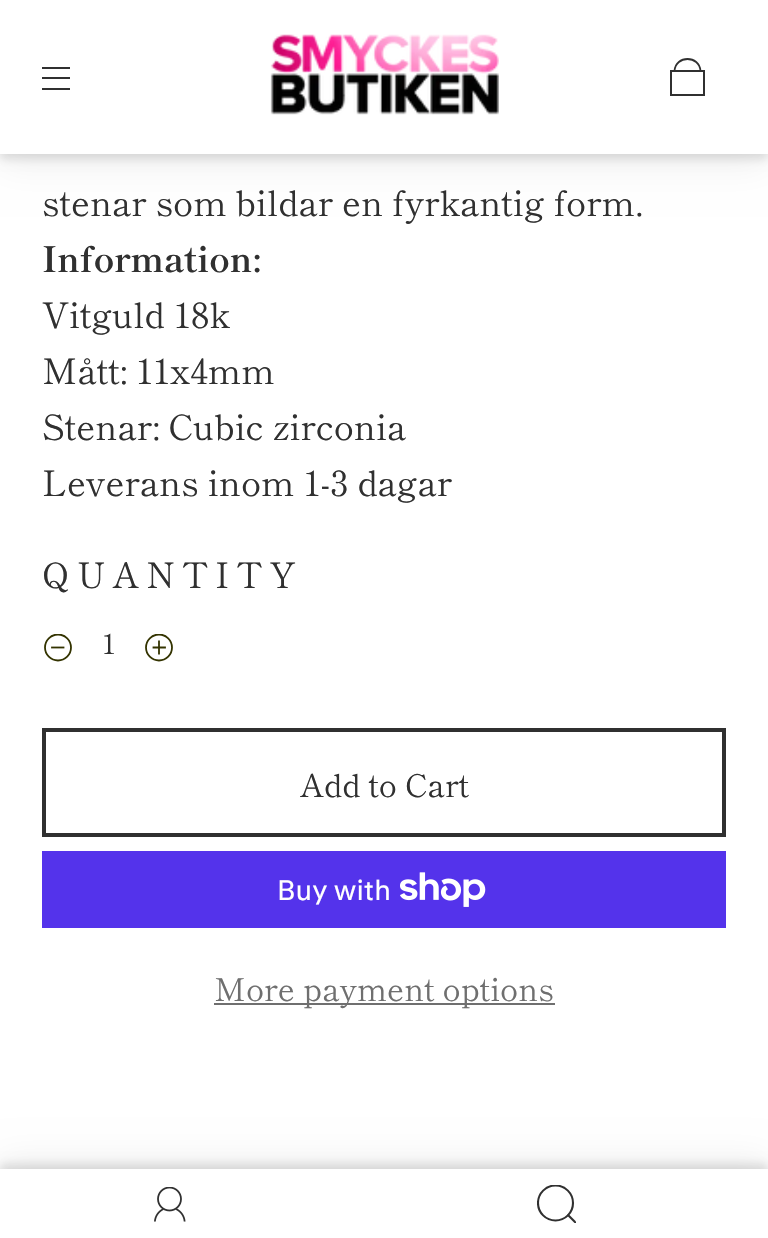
#include "include/core/SkBlurTypes.h"
#include "include/core/SkCanvas.h"
#include "include/core/SkData.h"
#include "include/core/SkFont.h"
#include "include/core/SkFontMgr.h"
#include "include/core/SkImage.h"
#include "include/core/SkMaskFilter.h"
#include "include/core/SkPaint.h"
#include "include/core/SkPathBuilder.h"
#include "include/core/SkTextBlob.h"
#include "include/effects/SkDashPathEffect.h"
#include "include/effects/SkGradientShader.h"
#include "include/utils/SkParsePath.h"

extern sk_sp<SkFontMgr> fontMgr;

void draw(SkCanvas* canvas) {
  SkPaint p;
  p.setAntiAlias(true);
  auto spacedText = [&](const char* s, float x, float y, const SkFont& font, const SkPaint& ink, float letter, float word) {
    std::vector<SkGlyphID> glyphs(font.countText(s, strlen(s), SkTextEncoding::kUTF8));
    std::vector<float> xs(glyphs.size());
    font.textToGlyphs(s, strlen(s), SkTextEncoding::kUTF8, glyphs);
    font.getXPos(glyphs, xs, x);
    float extra = 0;
    for (size_t i = 0; i < glyphs.size(); i++) {
      xs[i] += extra;
      extra += letter + word * (glyphs[i] == font.unicharToGlyph(' '));
    }
    canvas->drawTextBlob(SkTextBlob::MakeFromPosHGlyphs(glyphs, xs, y, font), 0, 0, ink);
  };
  canvas->clear(SK_ColorWHITE);
  p.setColor(SkColorSetARGB(15, 0, 0, 0));
  p.setMaskFilter(SkMaskFilter::MakeBlur(kNormal_SkBlurStyle, 17.5f));
  canvas->drawRect(SkRect::MakeLTRB(0, 11, 768, 165), p);
  p.setMaskFilter(nullptr);
  p.setColor(SkColorSetARGB(31, 0, 0, 0));
  p.setMaskFilter(SkMaskFilter::MakeBlur(kNormal_SkBlurStyle, 4.5f));
  canvas->drawRect(SkRect::MakeLTRB(0, 5, 768, 159), p);
  p.setMaskFilter(nullptr);
  p.setColor(SK_ColorWHITE);
  canvas->drawRect(SkRect::MakeLTRB(0, 0, 768, 154), p);
  p.setColor(SkColorSetRGB(48, 48, 48));
  canvas->drawRect(SkRect::MakeLTRB(42, 67, 70, 69), p);
  canvas->drawRect(SkRect::MakeLTRB(42, 77, 70, 79), p);
  canvas->drawRect(SkRect::MakeLTRB(42, 88, 70, 90), p);
  canvas->drawImageRect(SkImages::DeferredFromEncodedData(SkData::MakeFromFileName("images/1.png")), SkRect::MakeLTRB(270, 34, 499, 115), SkSamplingOptions());
  p.setStyle(SkPaint::kStroke_Style);
  p.setStrokeWidth(1.8f);
  canvas->drawPath(SkPathBuilder().moveTo(674.5f, 71).cubicTo(675.5f, 55, 699.5f, 55, 700.5f, 71).close().detach(), p);
  p.setStrokeWidth(2);
  canvas->drawRect(SkRect::MakeLTRB(671, 71, 704, 95), p);
  canvas->save();
  canvas->clipRect(SkRect::MakeLTRB(44, 634, 72, 662));
  p.setStrokeWidth(1.8f);
  p.setColor(SkColorSetRGB(51, 51, 0));
  canvas->drawCircle(58, 647.5f, 13, p);
  canvas->restore();
  p.setStrokeCap(SkPaint::kSquare_Cap);
  canvas->drawPath(SkPathBuilder().moveTo(52, 647.5f).lineTo(63.5f, 647.5f).detach(), p);
  canvas->save();
  canvas->clipRect(SkRect::MakeLTRB(145, 634, 173, 662));
  p.setStrokeCap(SkPaint::kButt_Cap);
  canvas->drawCircle(159, 647.5f, 13, p);
  canvas->restore();
  p.setStrokeCap(SkPaint::kSquare_Cap);
  canvas->drawPath(SkPathBuilder().moveTo(153.5f, 647.5f).lineTo(165, 647.5f).moveTo(159, 641.5f).lineTo(159, 653.5f).detach(), p);
  p.setStrokeWidth(4);
  p.setStrokeCap(SkPaint::kButt_Cap);
  p.setColor(SkColorSetRGB(48, 48, 48));
  canvas->drawRect(SkRect::MakeLTRB(44, 730, 724, 835), p);
  p.setStyle(SkPaint::kFill_Style);
  p.setColor(SkColorSetRGB(84, 51, 235));
  canvas->drawRect(SkRect::MakeLTRB(42, 851, 726, 928), p);
  canvas->drawImageRect(SkImages::DeferredFromEncodedData(SkData::MakeFromFileName("images/2.png")), SkRect::MakeLTRB(400, 872, 486, 907), SkSamplingOptions());
  p.setColor(SkColorSetRGB(111, 111, 111));
  canvas->drawRect(SkRect::MakeLTRB(214, 1003, 555, 1005), p);
  p.setColor(SkColorSetARGB(15, 0, 0, 0));
  p.setMaskFilter(SkMaskFilter::MakeBlur(kNormal_SkBlurStyle, 17.5f));
  canvas->drawRect(SkRect::MakeLTRB(0, 1159, 768, 1229), p);
  p.setMaskFilter(nullptr);
  p.setColor(SkColorSetARGB(31, 0, 0, 0));
  p.setMaskFilter(SkMaskFilter::MakeBlur(kNormal_SkBlurStyle, 4.5f));
  canvas->drawRect(SkRect::MakeLTRB(0, 1164, 768, 1234), p);
  p.setMaskFilter(nullptr);
  p.setColor(SK_ColorWHITE);
  canvas->drawRect(SkRect::MakeLTRB(0, 1169, 768, 1238), p);
  canvas->drawImageRect(SkImages::DeferredFromEncodedData(SkData::MakeFromFileName("images/3.png")), SkRect::MakeLTRB(154, 1187, 186, 1222), SkSamplingOptions());
  canvas->save();
  canvas->clipRect(SkRect::MakeLTRB(537, 1185, 576, 1223));
  p.setStyle(SkPaint::kStroke_Style);
  p.setStrokeWidth(2.1f);
  p.setColor(SkColorSetRGB(48, 48, 48));
  canvas->drawCircle(555.5f, 1203, 17.5f, p);
  canvas->drawPath(SkPathBuilder().moveTo(567.5f, 1214.5f).lineTo(580, 1227).detach(), p);
  canvas->restore();
  SkFont font1(fontMgr->matchFamilyStyle("Shippori Mincho", SkFontStyle::Normal()), 35);
  font1.setSubpixel(true);
  p.setStyle(SkPaint::kFill_Style);
  canvas->drawString("stenar som bildar en fyrkantig form.", 42, 216, font1, p);
  SkFont font2(fontMgr->matchFamilyStyle("Shippori Mincho", SkFontStyle::Bold()), 35);
  font2.setSubpixel(true);
  canvas->drawString("Information:", 42, 272, font2, p);
  canvas->drawString("Vitguld 18k", 42, 328, font1, p);
  canvas->drawString("Mått: 11x4mm", 42, 384, font1, p);
  canvas->drawString("Stenar: Cubic zirconia", 42, 440, font1, p);
  canvas->drawString("Leverans inom 1-3 dagar", 42, 496, font1, p);
  spacedText("QUANTITY", 42, 588, font1, p, 7, 0);
  SkFont font3(fontMgr->matchFamilyStyle("Shippori Mincho", SkFontStyle::Normal()), 28);
  font3.setSubpixel(true);
  canvas->drawString("1", 102, 654, font3, p);
  SkFont font4(fontMgr->matchFamilyStyle("Shippori Mincho", SkFontStyle::Normal()), 31.5f);
  font4.setSubpixel(true);
  canvas->drawString("Add to Cart", 300, 797, font4, p);
  SkFont font5(fontMgr->matchFamilyStyle("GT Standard", SkFontStyle::Normal()), 28);
  font5.setSubpixel(true);
  p.setColor(SK_ColorWHITE);
  canvas->drawString("Buy with", 277, 900, font5, p);
  p.setColor(SkColorSetRGB(111, 111, 111));
  canvas->drawString("More payment options", 214, 1001, font4, p);
}
